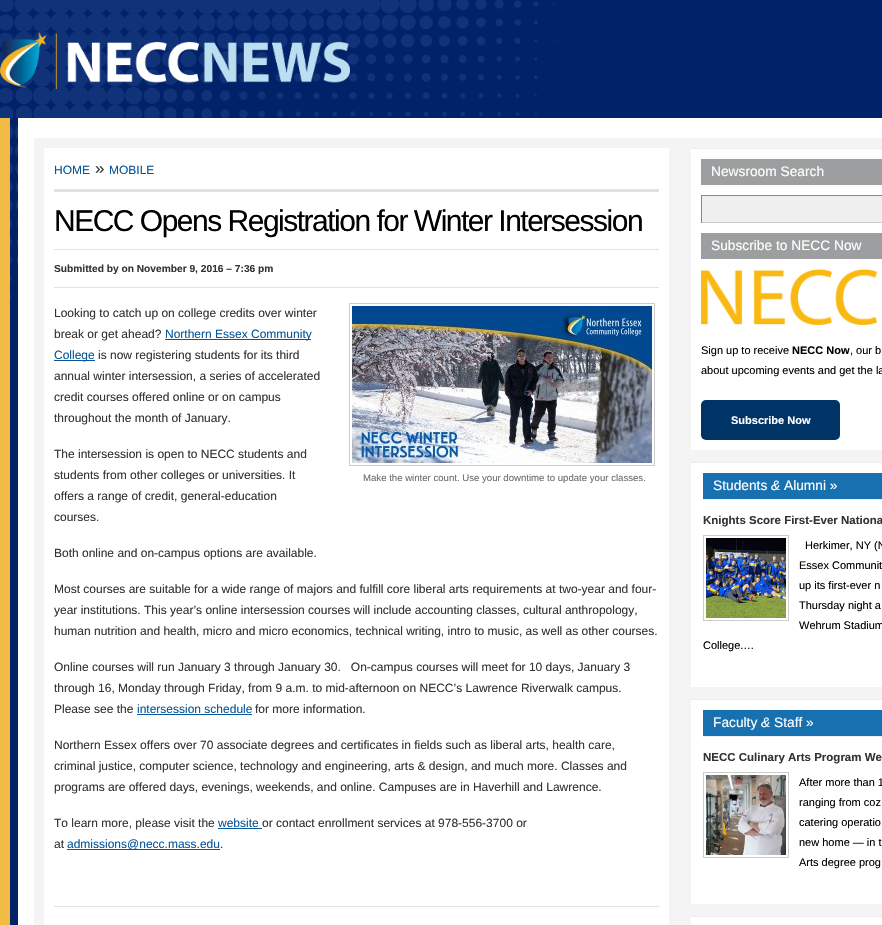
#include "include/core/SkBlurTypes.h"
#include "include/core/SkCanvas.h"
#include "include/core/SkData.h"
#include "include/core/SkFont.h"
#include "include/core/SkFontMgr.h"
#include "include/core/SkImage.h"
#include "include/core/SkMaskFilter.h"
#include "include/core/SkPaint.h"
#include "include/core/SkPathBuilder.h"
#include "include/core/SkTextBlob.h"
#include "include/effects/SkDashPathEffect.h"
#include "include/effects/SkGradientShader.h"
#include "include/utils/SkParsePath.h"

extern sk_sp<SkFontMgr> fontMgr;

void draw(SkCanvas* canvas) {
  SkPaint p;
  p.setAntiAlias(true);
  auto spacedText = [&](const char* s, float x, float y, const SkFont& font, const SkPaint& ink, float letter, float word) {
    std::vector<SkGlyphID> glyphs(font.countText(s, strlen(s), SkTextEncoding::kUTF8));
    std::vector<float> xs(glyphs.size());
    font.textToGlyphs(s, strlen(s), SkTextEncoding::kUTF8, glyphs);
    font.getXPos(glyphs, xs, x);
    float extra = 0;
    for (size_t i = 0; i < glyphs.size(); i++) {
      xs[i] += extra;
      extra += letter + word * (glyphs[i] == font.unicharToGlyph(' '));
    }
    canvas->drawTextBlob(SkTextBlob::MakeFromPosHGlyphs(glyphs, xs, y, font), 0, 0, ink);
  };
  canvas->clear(SkColorSetRGB(1, 33, 105));
  canvas->drawImageRect(SkImages::DeferredFromEncodedData(SkData::MakeFromFileName("images/1.png")), SkRect::MakeLTRB(0, 0, 573, 300), SkSamplingOptions());
  canvas->drawImageRect(SkImages::DeferredFromEncodedData(SkData::MakeFromFileName("images/2.png")), SkRect::MakeLTRB(0, 32, 350, 89), SkSamplingOptions());
  p.setColor(SkColorSetRGB(242, 187, 67));
  canvas->drawRect(SkRect::MakeLTRB(0, 118, 10, 925), p);
  p.setColor(SK_ColorWHITE);
  canvas->drawRect(SkRect::MakeLTRB(18, 118, 882, 138), p);
  canvas->drawRect(SkRect::MakeLTRB(18, 138, 34, 925), p);
  p.setColor(SkColorSetRGB(244, 244, 244));
  canvas->drawRect(SkRect::MakeLTRB(34, 138, 882, 925), p);
  p.setColor(SK_ColorWHITE);
  canvas->drawRect(SkRect::MakeLTRB(44, 148, 669, 925), p);
  p.setColor(SkColorSetRGB(226, 226, 226));
  canvas->drawRect(SkRect::MakeLTRB(54, 189, 659, 192), p);
  canvas->drawRect(SkRect::MakeLTRB(54, 249, 659, 250), p);
  canvas->drawRect(SkRect::MakeLTRB(54, 287, 659, 288), p);
  canvas->drawRect(SkRect::MakeLTRB(54, 906, 659, 907), p);
  p.setColor(SkColorSetRGB(8, 87, 155));
  canvas->drawRect(SkRect::MakeLTRB(165, 339, 311, 340), p);
  canvas->drawRect(SkRect::MakeLTRB(54, 360, 95, 361), p);
  p.setStyle(SkPaint::kStroke_Style);
  p.setStrokeWidth(1);
  p.setColor(SkColorSetRGB(204, 204, 204));
  canvas->drawRect(SkRect::MakeLTRB(349.5f, 303.5f, 654.5f, 465.5f), p);
  canvas->drawImageRect(SkImages::DeferredFromEncodedData(SkData::MakeFromFileName("images/3.png")), SkRect::MakeLTRB(352, 306, 652, 463), SkSamplingOptions());
  p.setStyle(SkPaint::kFill_Style);
  p.setColor(SkColorSetRGB(8, 87, 155));
  canvas->drawRect(SkRect::MakeLTRB(137, 714, 252, 715), p);
  canvas->drawRect(SkRect::MakeLTRB(218, 828, 262, 829), p);
  canvas->drawRect(SkRect::MakeLTRB(67, 849, 220, 850), p);
  p.setColor(SK_ColorWHITE);
  canvas->drawRect(SkRect::MakeLTRB(691, 149, 882, 450), p);
  p.setColor(SkColorSetRGB(236, 236, 236));
  canvas->drawRect(SkRect::MakeLTRB(691, 148, 882, 149), p);
  p.setColor(SkColorSetRGB(157, 158, 159));
  canvas->drawRect(SkRect::MakeLTRB(701, 159, 882, 185), p);
  p.setColor(SkColorSetRGB(239, 239, 239));
  canvas->drawRect(SkRect::MakeLTRB(702, 196, 882, 222), p);
  p.setColor(SkColorSetRGB(136, 136, 136));
  canvas->drawRect(SkRect::MakeLTRB(701, 195, 882, 196), p);
  p.setColor(SkColorSetRGB(204, 204, 204));
  canvas->drawRect(SkRect::MakeLTRB(701, 222, 882, 223), p);
  p.setColor(SkColorSetRGB(136, 136, 136));
  canvas->drawRect(SkRect::MakeLTRB(701, 195, 702, 223), p);
  p.setColor(SkColorSetRGB(157, 158, 159));
  canvas->drawRect(SkRect::MakeLTRB(701, 233, 882, 259), p);
  canvas->drawImageRect(SkImages::DeferredFromEncodedData(SkData::MakeFromFileName("images/4.png")), SkRect::MakeLTRB(701, 269, 878, 325), SkSamplingOptions());
  p.setColor(SkColorSetRGB(0, 51, 102));
  canvas->drawRoundRect(SkRect::MakeLTRB(701, 400, 840, 440), 5, 5, p);
  p.setColor(SK_ColorWHITE);
  canvas->drawRect(SkRect::MakeLTRB(691, 463, 882, 687), p);
  p.setColor(SkColorSetRGB(236, 236, 236));
  canvas->drawRect(SkRect::MakeLTRB(691, 462, 882, 463), p);
  p.setColor(SkColorSetRGB(23, 112, 175));
  canvas->drawRect(SkRect::MakeLTRB(703, 473, 882, 499), p);
  p.setColor(SkColorSetRGB(236, 236, 236));
  canvas->drawRect(SkRect::MakeLTRB(703, 499, 882, 500), p);
  p.setStyle(SkPaint::kStroke_Style);
  p.setColor(SkColorSetRGB(204, 204, 204));
  canvas->drawRect(SkRect::MakeLTRB(703.5f, 535.5f, 788.5f, 620.5f), p);
  canvas->drawImageRect(SkImages::DeferredFromEncodedData(SkData::MakeFromFileName("images/5.png")), SkRect::MakeLTRB(706, 538, 786, 618), SkSamplingOptions());
  p.setStyle(SkPaint::kFill_Style);
  p.setColor(SK_ColorWHITE);
  canvas->drawRect(SkRect::MakeLTRB(691, 700, 882, 904), p);
  p.setColor(SkColorSetRGB(236, 236, 236));
  canvas->drawRect(SkRect::MakeLTRB(691, 699, 882, 700), p);
  p.setColor(SkColorSetRGB(23, 112, 175));
  canvas->drawRect(SkRect::MakeLTRB(703, 710, 882, 736), p);
  p.setColor(SkColorSetRGB(236, 236, 236));
  canvas->drawRect(SkRect::MakeLTRB(703, 736, 882, 737), p);
  p.setStyle(SkPaint::kStroke_Style);
  p.setColor(SkColorSetRGB(204, 204, 204));
  canvas->drawRect(SkRect::MakeLTRB(703.5f, 772.5f, 788.5f, 857.5f), p);
  canvas->drawImageRect(SkImages::DeferredFromEncodedData(SkData::MakeFromFileName("images/6.png")), SkRect::MakeLTRB(706, 775, 786, 855), SkSamplingOptions());
  p.setStyle(SkPaint::kFill_Style);
  p.setColor(SK_ColorWHITE);
  canvas->drawRect(SkRect::MakeLTRB(691, 917, 882, 925), p);
  p.setColor(SkColorSetRGB(236, 236, 236));
  canvas->drawRect(SkRect::MakeLTRB(691, 916, 882, 917), p);
  SkFont font1(fontMgr->matchFamilyStyle("Liberation Sans", SkFontStyle::Normal()), 12);
  font1.setSubpixel(true);
  p.setColor(SkColorSetRGB(8, 87, 155));
  canvas->drawString("HOME", 54, 174, font1, p);
  SkFont font2(fontMgr->matchFamilyStyle("Liberation Sans", SkFontStyle::Normal()), 17);
  font2.setSubpixel(true);
  p.setColor(SkColorSetRGB(51, 51, 51));
  canvas->drawString("»", 95, 174, font2, p);
  p.setColor(SkColorSetRGB(8, 87, 155));
  canvas->drawString("MOBILE", 109, 174, font1, p);
  SkFont font3(fontMgr->matchFamilyStyle("Liberation Sans", SkFontStyle::Normal()), 30);
  font3.setSubpixel(true);
  p.setColor(SK_ColorBLACK);
  spacedText("NECC Opens Registration for Winter Intersession", 54, 231, font3, p, -1.5f, 0);
  SkFont font4(fontMgr->matchFamilyStyle("Liberation Sans", SkFontStyle::Bold()), 10.2f);
  font4.setSubpixel(true);
  p.setColor(SkColorSetRGB(51, 51, 51));
  canvas->drawString("Submitted by on November 9, 2016 – 7:36 pm", 54, 272, font4, p);
  canvas->drawString("Looking to catch up on college credits over winter", 54, 317, font1, p);
  canvas->drawString("break or get ahead?", 54, 338, font1, p);
  p.setColor(SkColorSetRGB(8, 87, 155));
  canvas->drawString("Northern Essex Community", 165, 338, font1, p);
  canvas->drawString("College", 54, 359, font1, p);
  p.setColor(SkColorSetRGB(51, 51, 51));
  canvas->drawString("is now registering students for its third", 98, 359, font1, p);
  canvas->drawString("annual winter intersession, a series of accelerated", 54, 380, font1, p);
  canvas->drawString("credit courses offered online or on campus", 54, 401, font1, p);
  canvas->drawString("throughout the month of January.", 54, 422, font1, p);
  canvas->drawString("The intersession is open to NECC students and", 54, 458, font1, p);
  canvas->drawString("students from other colleges or universities. It", 54, 479, font1, p);
  canvas->drawString("offers a range of credit, general-education", 54, 500, font1, p);
  canvas->drawString("courses.", 54, 521, font1, p);
  SkFont font5(fontMgr->matchFamilyStyle("Liberation Sans", SkFontStyle::Normal()), 9.6f);
  font5.setSubpixel(true);
  p.setColor(SkColorSetRGB(109, 109, 109));
  canvas->drawString("Make the winter count. Use your downtime to update your classes.", 363, 481, font5, p);
  p.setColor(SkColorSetRGB(51, 51, 51));
  canvas->drawString("Both online and on-campus options are available.", 54, 557, font1, p);
  canvas->drawString("Most courses are suitable for a wide range of majors and fulfill core liberal arts requirements at two-year and four-", 54, 593, font1, p);
  canvas->drawString("year institutions. This year’s online intersession courses will include accounting classes, cultural anthropology,", 54, 614, font1, p);
  canvas->drawString("human nutrition and health, micro and micro economics, technical writing, intro to music, as well as other courses.", 54, 635, font1, p);
  canvas->drawString("Online courses will run January 3 through January 30.   On-campus courses will meet for 10 days, January 3", 54, 671, font1, p);
  canvas->drawString("through 16, Monday through Friday, from 9 a.m. to mid-afternoon on NECC’s Lawrence Riverwalk campus.", 54, 692, font1, p);
  canvas->drawString("Please see the", 54, 713, font1, p);
  p.setColor(SkColorSetRGB(8, 87, 155));
  canvas->drawString("intersession schedule", 137, 713, font1, p);
  p.setColor(SkColorSetRGB(51, 51, 51));
  canvas->drawString("for more information.", 255, 713, font1, p);
  canvas->drawString("Northern Essex offers over 70 associate degrees and certificates in fields such as liberal arts, health care,", 54, 749, font1, p);
  canvas->drawString("criminal justice, computer science, technology and engineering, arts & design, and much more. Classes and", 54, 770, font1, p);
  canvas->drawString("programs are offered days, evenings, weekends, and online. Campuses are in Haverhill and Lawrence.", 54, 791, font1, p);
  canvas->drawString("To learn more, please visit the", 54, 827, font1, p);
  p.setColor(SkColorSetRGB(8, 87, 155));
  canvas->drawString("website", 218, 827, font1, p);
  p.setColor(SkColorSetRGB(51, 51, 51));
  canvas->drawString("or contact enrollment services at 978-556-3700 or", 262, 827, font1, p);
  canvas->drawString("at", 54, 848, font1, p);
  p.setColor(SkColorSetRGB(8, 87, 155));
  canvas->drawString("admissions@necc.mass.edu", 67, 848, font1, p);
  p.setColor(SkColorSetRGB(51, 51, 51));
  canvas->drawString(".", 220, 848, font1, p);
  SkFont font6(fontMgr->matchFamilyStyle("Liberation Sans", SkFontStyle::Normal()), 13.75f);
  font6.setSubpixel(true);
  p.setColor(SK_ColorWHITE);
  canvas->drawString("Newsroom Search", 711, 176, font6, p);
  canvas->drawString("Subscribe to NECC Now", 711, 250, font6, p);
  SkFont font7(fontMgr->matchFamilyStyle("Liberation Sans", SkFontStyle::Normal()), 11);
  font7.setSubpixel(true);
  p.setColor(SK_ColorBLACK);
  canvas->drawString("Sign up to receive", 701, 354, font7, p);
  SkFont font8(fontMgr->matchFamilyStyle("Liberation Sans", SkFontStyle::Bold()), 11);
  font8.setSubpixel(true);
  canvas->drawString("NECC Now", 792, 354, font8, p);
  canvas->drawString(", our bi", 850, 354, font7, p);
  canvas->drawString("about upcoming events and get the la", 701, 374, font7, p);
  p.setColor(SK_ColorWHITE);
  canvas->drawString("Subscribe Now", 731, 424, font8, p);
  canvas->drawString("Students", 713, 490, font6, p);
  SkFont font9(fontMgr->matchFamilyStyle("Liberation Sans", SkFontStyle::Italic()), 13.75f);
  font9.setSubpixel(true);
  canvas->drawString("&", 771, 490, font9, p);
  canvas->drawString("Alumni »", 784, 490, font6, p);
  SkFont font10(fontMgr->matchFamilyStyle("Liberation Sans", SkFontStyle::Bold()), 11.5f);
  font10.setSubpixel(true);
  p.setColor(SkColorSetRGB(51, 51, 51));
  canvas->drawString("Knights Score First-Ever Nationa", 703, 524, font10, p);
  p.setColor(SK_ColorBLACK);
  canvas->drawString("Herkimer, NY (N", 805, 549, font7, p);
  canvas->drawString("Essex Communit", 799, 569, font7, p);
  canvas->drawString("up its first-ever n", 799, 589, font7, p);
  canvas->drawString("Thursday night a", 799, 609, font7, p);
  canvas->drawString("Wehrum Stadium", 799, 629, font7, p);
  canvas->drawString("College.…", 703, 649, font7, p);
  p.setColor(SK_ColorWHITE);
  canvas->drawString("Faculty", 713, 727, font6, p);
  canvas->drawString("&", 761, 727, font9, p);
  canvas->drawString("Staff »", 774, 727, font6, p);
  p.setColor(SkColorSetRGB(51, 51, 51));
  canvas->drawString("NECC Culinary Arts Program We", 703, 761, font10, p);
  p.setColor(SK_ColorBLACK);
  canvas->drawString("After more than 1", 799, 786, font7, p);
  canvas->drawString("ranging from coz", 799, 806, font7, p);
  canvas->drawString("catering operatio", 799, 826, font7, p);
  canvas->drawString("new home — in t", 799, 846, font7, p);
  canvas->drawString("Arts degree prog", 799, 866, font7, p);
}
